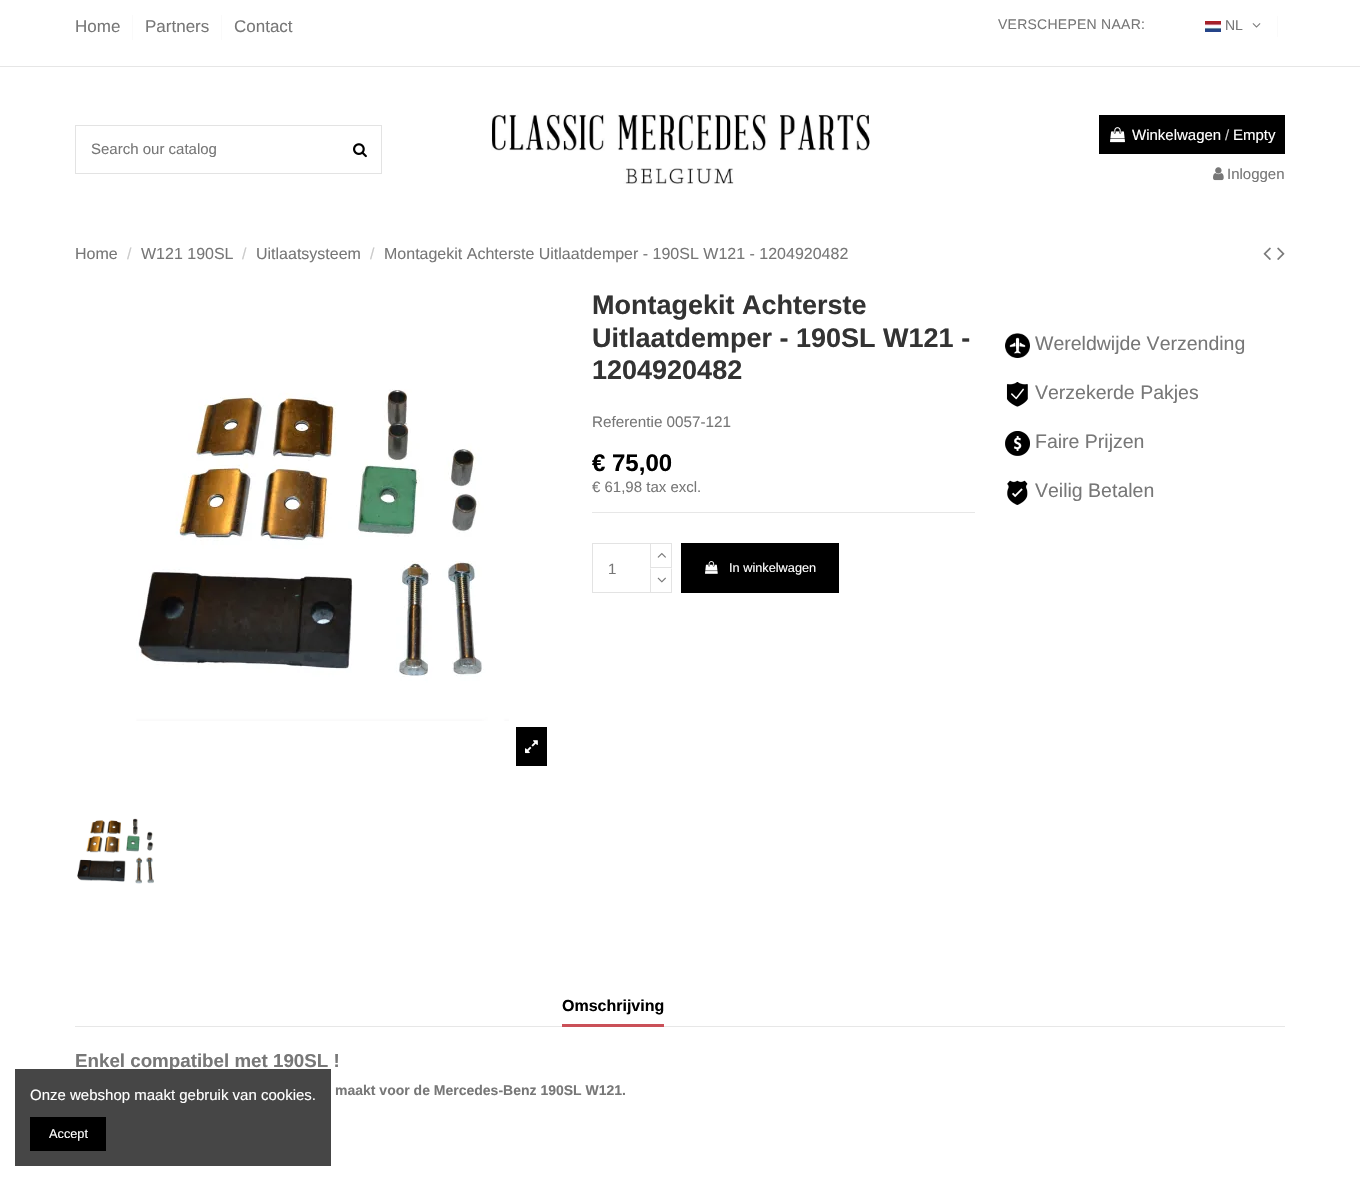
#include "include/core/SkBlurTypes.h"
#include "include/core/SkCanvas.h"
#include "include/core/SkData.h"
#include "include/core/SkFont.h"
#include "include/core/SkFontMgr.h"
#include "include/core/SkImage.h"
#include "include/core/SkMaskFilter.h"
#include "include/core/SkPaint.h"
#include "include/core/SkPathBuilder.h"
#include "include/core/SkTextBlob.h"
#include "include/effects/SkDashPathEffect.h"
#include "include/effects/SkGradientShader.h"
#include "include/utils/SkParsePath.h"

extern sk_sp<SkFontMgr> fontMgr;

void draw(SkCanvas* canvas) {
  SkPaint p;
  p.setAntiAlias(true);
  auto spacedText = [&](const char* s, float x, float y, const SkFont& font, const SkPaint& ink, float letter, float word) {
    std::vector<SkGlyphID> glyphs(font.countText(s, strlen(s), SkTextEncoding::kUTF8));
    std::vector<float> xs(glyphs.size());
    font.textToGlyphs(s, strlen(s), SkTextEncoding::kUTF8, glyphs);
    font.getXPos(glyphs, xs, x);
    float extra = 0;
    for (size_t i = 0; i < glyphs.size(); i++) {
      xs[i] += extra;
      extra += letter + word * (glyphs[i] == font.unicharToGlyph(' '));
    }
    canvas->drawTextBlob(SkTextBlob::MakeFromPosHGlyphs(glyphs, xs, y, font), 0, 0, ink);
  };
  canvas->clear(SK_ColorWHITE);
  p.setColor(SkColorSetRGB(230, 230, 230));
  canvas->drawRect(SkRect::MakeLTRB(0, 66, 1360, 67), p);
  p.setColor(SkColorSetRGB(250, 250, 250));
  canvas->drawRect(SkRect::MakeLTRB(132, 15, 133, 40), p);
  canvas->drawRect(SkRect::MakeLTRB(221, 15, 222, 40), p);
  canvas->drawImageRect(SkImages::DeferredFromEncodedData(SkData::MakeFromFileName("images/1.png")), SkRect::MakeLTRB(1205, 21, 1221, 32), SkSamplingOptions());
  canvas->drawImageRect(SkImages::DeferredFromEncodedData(SkData::MakeFromFileName("images/2.png")), SkRect::MakeLTRB(1252, 23, 1261, 28), SkSamplingOptions());
  canvas->drawRect(SkRect::MakeLTRB(1277, 16, 1278, 37), p);
  p.setStyle(SkPaint::kStroke_Style);
  p.setStrokeWidth(1);
  p.setColor(SkColorSetRGB(227, 227, 227));
  canvas->drawRect(SkRect::MakeLTRB(75.5f, 125.5f, 381.5f, 173.5f), p);
  canvas->drawImageRect(SkImages::DeferredFromEncodedData(SkData::MakeFromFileName("images/3.png")), SkRect::MakeLTRB(353, 143, 367, 158), SkSamplingOptions());
  canvas->drawImageRect(SkImages::DeferredFromEncodedData(SkData::MakeFromFileName("images/4.png")), SkRect::MakeLTRB(491, 114, 870, 184), SkSamplingOptions());
  p.setStyle(SkPaint::kFill_Style);
  p.setColor(SK_ColorBLACK);
  canvas->drawRect(SkRect::MakeLTRB(1099, 115, 1285, 154), p);
  canvas->drawImageRect(SkImages::DeferredFromEncodedData(SkData::MakeFromFileName("images/5.png")), SkRect::MakeLTRB(1110, 127, 1125, 143), SkSamplingOptions());
  canvas->drawImageRect(SkImages::DeferredFromEncodedData(SkData::MakeFromFileName("images/6.png")), SkRect::MakeLTRB(1213, 167, 1224, 181), SkSamplingOptions());
  canvas->drawImageRect(SkImages::DeferredFromEncodedData(SkData::MakeFromFileName("images/7.png")), SkRect::MakeLTRB(1263, 247, 1271, 260), SkSamplingOptions());
  canvas->drawImageRect(SkImages::DeferredFromEncodedData(SkData::MakeFromFileName("images/8.png")), SkRect::MakeLTRB(1277, 247, 1285, 260), SkSamplingOptions());
  canvas->drawImageRect(SkImages::DeferredFromEncodedData(SkData::MakeFromFileName("images/9.png")), SkRect::MakeLTRB(136, 389, 509, 721), SkSamplingOptions());
  canvas->drawRect(SkRect::MakeLTRB(516, 727, 547, 766), p);
  canvas->drawImageRect(SkImages::DeferredFromEncodedData(SkData::MakeFromFileName("images/10.png")), SkRect::MakeLTRB(525, 740, 538, 754), SkSamplingOptions());
  canvas->drawImageRect(SkImages::DeferredFromEncodedData(SkData::MakeFromFileName("images/11.png")), SkRect::MakeLTRB(77, 818, 154, 884), SkSamplingOptions());
  p.setColor(SkColorSetRGB(231, 231, 231));
  canvas->drawRect(SkRect::MakeLTRB(592, 512, 975, 513), p);
  p.setStyle(SkPaint::kStroke_Style);
  p.setColor(SkColorSetRGB(227, 227, 227));
  canvas->drawRect(SkRect::MakeLTRB(592.5f, 543.5f, 650.5f, 592.5f), p);
  canvas->drawRect(SkRect::MakeLTRB(650.5f, 543.5f, 671.5f, 567.5f), p);
  canvas->drawImageRect(SkImages::DeferredFromEncodedData(SkData::MakeFromFileName("images/12.png")), SkRect::MakeLTRB(657, 552, 666, 558), SkSamplingOptions());
  p.setStyle(SkPaint::kFill_Style);
  p.setColor(SK_ColorWHITE);
  canvas->drawRect(SkRect::MakeLTRB(650, 568, 651, 592), p);
  p.setColor(SkColorSetRGB(227, 227, 227));
  canvas->drawPath(SkPathBuilder().moveTo(672, 568).lineTo(672, 593).lineTo(671, 592).lineTo(671, 569).close().detach(), p);
  canvas->drawRect(SkRect::MakeLTRB(650, 592, 672, 593), p);
  canvas->drawPath(SkPathBuilder().moveTo(650, 593).lineTo(650, 568).lineTo(651, 569).lineTo(651, 592).close().detach(), p);
  canvas->drawImageRect(SkImages::DeferredFromEncodedData(SkData::MakeFromFileName("images/13.png")), SkRect::MakeLTRB(657, 577, 666, 583), SkSamplingOptions());
  p.setColor(SK_ColorBLACK);
  canvas->drawRect(SkRect::MakeLTRB(681, 543, 839, 593), p);
  canvas->drawImageRect(SkImages::DeferredFromEncodedData(SkData::MakeFromFileName("images/14.png")), SkRect::MakeLTRB(705, 561, 718, 574), SkSamplingOptions());
  canvas->drawImageRect(SkImages::DeferredFromEncodedData(SkData::MakeFromFileName("images/15.png")), SkRect::MakeLTRB(1005, 333, 1030, 358), SkSamplingOptions());
  canvas->drawImageRect(SkImages::DeferredFromEncodedData(SkData::MakeFromFileName("images/16.png")), SkRect::MakeLTRB(1006, 382, 1028, 407), SkSamplingOptions());
  canvas->drawImageRect(SkImages::DeferredFromEncodedData(SkData::MakeFromFileName("images/17.png")), SkRect::MakeLTRB(1005, 431, 1030, 456), SkSamplingOptions());
  canvas->drawImageRect(SkImages::DeferredFromEncodedData(SkData::MakeFromFileName("images/18.png")), SkRect::MakeLTRB(1007, 480, 1028, 505), SkSamplingOptions());
  p.setColor(SkColorSetRGB(231, 231, 231));
  canvas->drawRect(SkRect::MakeLTRB(75, 1026, 1285, 1027), p);
  p.setColor(SkColorSetRGB(202, 80, 88));
  canvas->drawRect(SkRect::MakeLTRB(562, 1024, 664, 1027), p);
  SkFont font1(fontMgr->matchFamilyStyle("Liberation Sans", SkFontStyle::Normal()), 17);
  font1.setSubpixel(true);
  p.setColor(SkColorSetRGB(119, 119, 119));
  canvas->drawString("Home", 75, 32, font1, p);
  canvas->drawString("Partners", 145, 32, font1, p);
  canvas->drawString("Contact", 234, 32, font1, p);
  SkFont font2(fontMgr->matchFamilyStyle("Liberation Sans", SkFontStyle::Normal()), 14);
  font2.setSubpixel(true);
  spacedText("VERSCHEPEN NAAR:", 998, 29, font2, p, 0.25f, 0);
  canvas->drawString("NL", 1225, 30, font2, p);
  SkFont font3(fontMgr->matchFamilyStyle("Liberation Sans", SkFontStyle::Normal()), 15);
  font3.setSubpixel(true);
  canvas->drawString("Search our catalog", 91, 154, font3, p);
  p.setColor(SK_ColorWHITE);
  canvas->drawString("Winkelwagen", 1132, 140, font3, p);
  p.setColor(SkColorSetRGB(202, 202, 202));
  canvas->drawString("/", 1225, 140, font3, p);
  p.setColor(SK_ColorWHITE);
  canvas->drawString("Empty", 1233, 140, font3, p);
  p.setColor(SkColorSetRGB(119, 119, 119));
  canvas->drawString("Inloggen", 1227, 179, font3, p);
  SkFont font4(fontMgr->matchFamilyStyle("Liberation Sans", SkFontStyle::Normal()), 16);
  font4.setSubpixel(true);
  canvas->drawString("Home", 75, 259, font4, p);
  p.setColor(SkColorSetRGB(202, 202, 202));
  canvas->drawString("/", 127, 259, font4, p);
  p.setColor(SkColorSetRGB(119, 119, 119));
  canvas->drawString("W121 190SL", 141, 259, font4, p);
  p.setColor(SkColorSetRGB(202, 202, 202));
  canvas->drawString("/", 242, 259, font4, p);
  p.setColor(SkColorSetRGB(119, 119, 119));
  canvas->drawString("Uitlaatsysteem", 256, 259, font4, p);
  p.setColor(SkColorSetRGB(202, 202, 202));
  canvas->drawString("/", 370, 259, font4, p);
  p.setColor(SkColorSetRGB(119, 119, 119));
  canvas->drawString("Montagekit Achterste Uitlaatdemper - 190SL W121 - 1204920482", 384, 259, font4, p);
  SkFont font5(fontMgr->matchFamilyStyle("Liberation Sans", SkFontStyle::Bold()), 27);
  font5.setSubpixel(true);
  p.setColor(SkColorSetRGB(51, 51, 51));
  canvas->drawString("Montagekit Achterste", 592, 314, font5, p);
  canvas->drawString("Uitlaatdemper - 190SL W121 -", 592, 347, font5, p);
  canvas->drawString("1204920482", 592, 379, font5, p);
  SkFont font6(fontMgr->matchFamilyStyle("Liberation Sans", SkFontStyle::Normal()), 15.25f);
  font6.setSubpixel(true);
  p.setColor(SkColorSetRGB(119, 119, 119));
  canvas->drawString("Referentie 0057-121", 592, 427, font6, p);
  SkFont font7(fontMgr->matchFamilyStyle("Liberation Sans", SkFontStyle::Bold()), 24);
  font7.setSubpixel(true);
  p.setColor(SK_ColorBLACK);
  canvas->drawString("€ 75,00", 592, 471, font7, p);
  p.setColor(SkColorSetRGB(119, 119, 119));
  canvas->drawString("€ 61,98 tax excl.", 592, 492, font3, p);
  canvas->drawString("1", 608, 574, font3, p);
  SkFont font8(fontMgr->matchFamilyStyle("Liberation Sans", SkFontStyle::Normal()), 12.75f);
  font8.setSubpixel(true);
  p.setColor(SK_ColorWHITE);
  canvas->drawString("In winkelwagen", 729, 572, font8, p);
  SkFont font9(fontMgr->matchFamilyStyle("Liberation Sans", SkFontStyle::Normal()), 19.5f);
  font9.setSubpixel(true);
  p.setColor(SkColorSetRGB(119, 119, 119));
  canvas->drawString("Wereldwijde Verzending", 1035, 350, font9, p);
  canvas->drawString("Verzekerde Pakjes", 1035, 399, font9, p);
  canvas->drawString("Faire Prijzen", 1035, 448, font9, p);
  canvas->drawString("Veilig Betalen", 1035, 497, font9, p);
  SkFont font10(fontMgr->matchFamilyStyle("Liberation Sans", SkFontStyle::Bold()), 16);
  font10.setSubpixel(true);
  p.setColor(SK_ColorBLACK);
  canvas->drawString("Omschrijving", 562, 1011, font10, p);
  SkFont font11(fontMgr->matchFamilyStyle("Liberation Sans", SkFontStyle::Bold()), 18.75f);
  font11.setSubpixel(true);
  p.setColor(SkColorSetRGB(119, 119, 119));
  canvas->drawString("Enkel compatibel met 190SL !", 75, 1067, font11, p);
  SkFont font12(fontMgr->matchFamilyStyle("Liberation Sans", SkFontStyle::Bold()), 14);
  font12.setSubpixel(true);
  canvas->drawString("maakt voor de Mercedes-Benz 190SL W121.", 335, 1095, font12, p);
  p.setColor(SkColorSetRGB(70, 70, 70));
  canvas->drawRect(SkRect::MakeLTRB(15, 1069, 331, 1166), p);
  p.setColor(SK_ColorWHITE);
  canvas->drawString("Onze webshop maakt gebruik van cookies.", 30, 1100, font3, p);
  p.setColor(SK_ColorBLACK);
  canvas->drawRect(SkRect::MakeLTRB(30, 1117, 106, 1151), p);
  p.setColor(SK_ColorWHITE);
  canvas->drawString("Accept", 49, 1138, font8, p);
}
